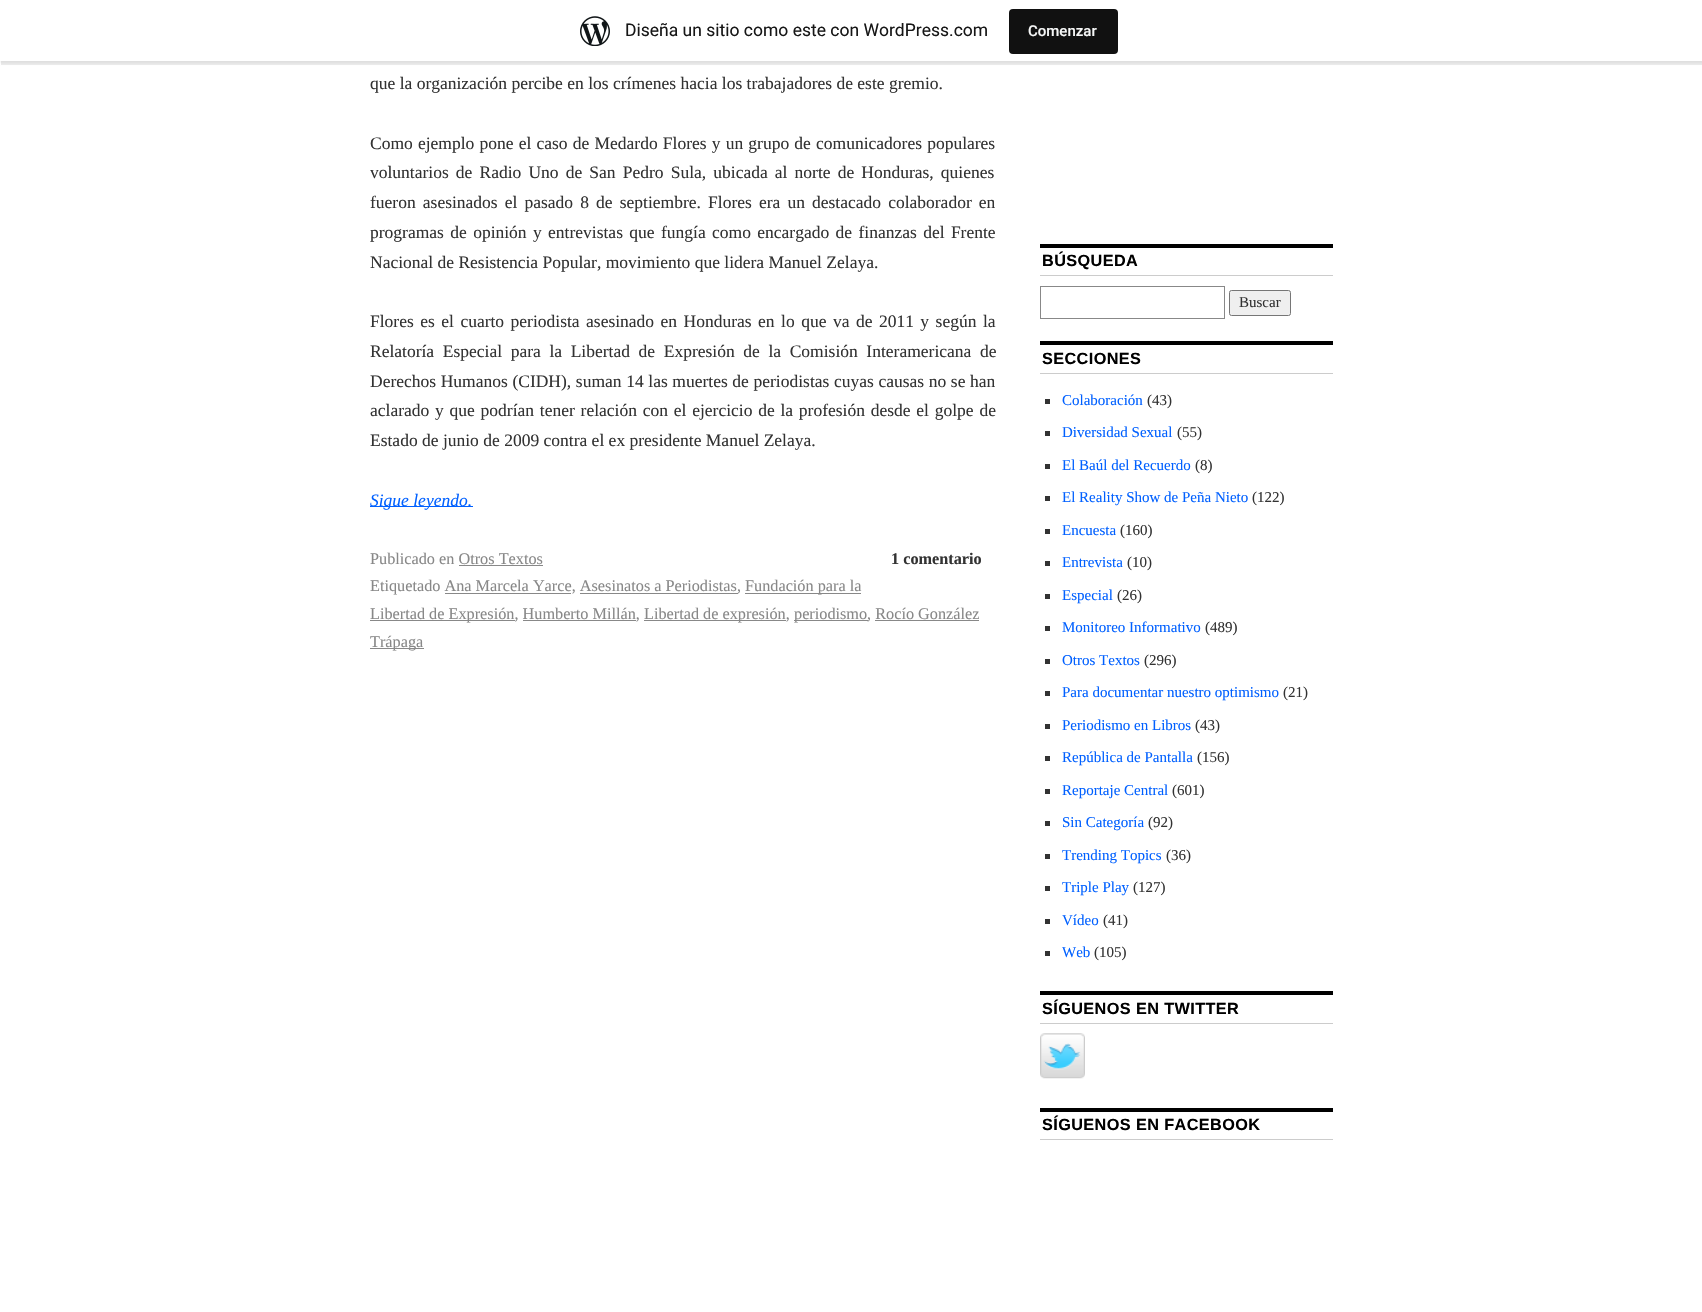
#include "include/core/SkBlurTypes.h"
#include "include/core/SkCanvas.h"
#include "include/core/SkData.h"
#include "include/core/SkFont.h"
#include "include/core/SkFontMgr.h"
#include "include/core/SkImage.h"
#include "include/core/SkMaskFilter.h"
#include "include/core/SkPaint.h"
#include "include/core/SkPathBuilder.h"
#include "include/core/SkTextBlob.h"
#include "include/effects/SkDashPathEffect.h"
#include "include/effects/SkGradientShader.h"
#include "include/utils/SkParsePath.h"

extern sk_sp<SkFontMgr> fontMgr;

void draw(SkCanvas* canvas) {
  SkPaint p;
  p.setAntiAlias(true);
  auto spacedText = [&](const char* s, float x, float y, const SkFont& font, const SkPaint& ink, float letter, float word) {
    std::vector<SkGlyphID> glyphs(font.countText(s, strlen(s), SkTextEncoding::kUTF8));
    std::vector<float> xs(glyphs.size());
    font.textToGlyphs(s, strlen(s), SkTextEncoding::kUTF8, glyphs);
    font.getXPos(glyphs, xs, x);
    float extra = 0;
    for (size_t i = 0; i < glyphs.size(); i++) {
      xs[i] += extra;
      extra += letter + word * (glyphs[i] == font.unicharToGlyph(' '));
    }
    canvas->drawTextBlob(SkTextBlob::MakeFromPosHGlyphs(glyphs, xs, y, font), 0, 0, ink);
  };
  canvas->clear(SK_ColorWHITE);
  p.setColor(SkColorSetARGB(13, 0, 0, 0));
  p.setMaskFilter(SkMaskFilter::MakeBlur(kNormal_SkBlurStyle, 1));
  canvas->drawRect(SkRect::MakeLTRB(0, 1, 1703, 63), p);
  p.setMaskFilter(nullptr);
  p.setColor(SkColorSetARGB(20, 0, 0, 0));
  canvas->drawPath(SkPathBuilder().moveTo(1, 61).lineTo(1, 65).lineTo(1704, 65).lineTo(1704, 4).lineTo(1702, 4).lineTo(1702, 61).close().detach(), p);
  p.setColor(SK_ColorWHITE);
  canvas->drawRect(SkRect::MakeLTRB(0, 0, 1702, 61), p);
  canvas->drawImageRect(SkImages::DeferredFromEncodedData(SkData::MakeFromFileName("images/1.png")), SkRect::MakeLTRB(580, 16, 610, 46), SkSamplingOptions());
  p.setColor(SkColorSetRGB(17, 17, 17));
  canvas->drawRoundRect(SkRect::MakeLTRB(1009, 9, 1118, 54), 4, 4, p);
  p.setColor(SkColorSetRGB(0, 96, 255));
  canvas->drawRect(SkRect::MakeLTRB(370, 506, 473, 507), p);
  p.setColor(SkColorSetRGB(136, 136, 136));
  canvas->drawRect(SkRect::MakeLTRB(459, 565, 543, 566), p);
  canvas->drawRect(SkRect::MakeLTRB(745, 593, 861, 594), p);
  canvas->drawRect(SkRect::MakeLTRB(445, 593, 571, 594), p);
  canvas->drawRect(SkRect::MakeLTRB(580, 593, 738, 594), p);
  canvas->drawRect(SkRect::MakeLTRB(370, 620, 515, 621), p);
  canvas->drawRect(SkRect::MakeLTRB(644, 620, 786, 621), p);
  canvas->drawRect(SkRect::MakeLTRB(794, 620, 868, 621), p);
  canvas->drawRect(SkRect::MakeLTRB(523, 620, 636, 621), p);
  canvas->drawRect(SkRect::MakeLTRB(875, 620, 979, 621), p);
  canvas->drawRect(SkRect::MakeLTRB(370, 648, 424, 649), p);
  p.setColor(SK_ColorBLACK);
  canvas->drawRect(SkRect::MakeLTRB(1040, 244, 1333, 248), p);
  p.setColor(SkColorSetRGB(204, 204, 204));
  canvas->drawRect(SkRect::MakeLTRB(1040, 275, 1333, 276), p);
  p.setStyle(SkPaint::kStroke_Style);
  p.setStrokeWidth(1);
  p.setColor(SkColorSetRGB(136, 136, 136));
  canvas->drawRect(SkRect::MakeLTRB(1040.5f, 286.5f, 1224.5f, 318.5f), p);
  p.setStyle(SkPaint::kFill_Style);
  p.setColor(SkColorSetRGB(239, 239, 239));
  canvas->drawRoundRect(SkRect::MakeLTRB(1229.5f, 290.5f, 1290.5f, 315.5f), 2, 2, p);
  p.setStyle(SkPaint::kStroke_Style);
  p.setColor(SkColorSetRGB(118, 118, 118));
  canvas->drawRoundRect(SkRect::MakeLTRB(1229.5f, 290.5f, 1290.5f, 315.5f), 2, 2, p);
  p.setStyle(SkPaint::kFill_Style);
  p.setColor(SK_ColorBLACK);
  canvas->drawRect(SkRect::MakeLTRB(1040, 341, 1333, 345), p);
  p.setColor(SkColorSetRGB(204, 204, 204));
  canvas->drawRect(SkRect::MakeLTRB(1040, 373, 1333, 374), p);
  p.setColor(SkColorSetRGB(51, 51, 51));
  canvas->drawRect(SkRect::MakeLTRB(1045, 399, 1050, 404), p);
  canvas->drawRect(SkRect::MakeLTRB(1045, 431, 1050, 436), p);
  canvas->drawRect(SkRect::MakeLTRB(1045, 464, 1050, 469), p);
  canvas->drawRect(SkRect::MakeLTRB(1045, 496, 1050, 501), p);
  canvas->drawRect(SkRect::MakeLTRB(1045, 529, 1050, 534), p);
  canvas->drawRect(SkRect::MakeLTRB(1045, 561, 1050, 566), p);
  canvas->drawRect(SkRect::MakeLTRB(1045, 594, 1050, 599), p);
  canvas->drawRect(SkRect::MakeLTRB(1045, 626, 1050, 631), p);
  canvas->drawRect(SkRect::MakeLTRB(1045, 659, 1050, 664), p);
  canvas->drawRect(SkRect::MakeLTRB(1045, 691, 1050, 696), p);
  canvas->drawRect(SkRect::MakeLTRB(1045, 724, 1050, 729), p);
  canvas->drawRect(SkRect::MakeLTRB(1045, 756, 1050, 761), p);
  canvas->drawRect(SkRect::MakeLTRB(1045, 789, 1050, 794), p);
  canvas->drawRect(SkRect::MakeLTRB(1045, 821, 1050, 826), p);
  canvas->drawRect(SkRect::MakeLTRB(1045, 854, 1050, 859), p);
  canvas->drawRect(SkRect::MakeLTRB(1045, 886, 1050, 891), p);
  canvas->drawRect(SkRect::MakeLTRB(1045, 919, 1050, 924), p);
  canvas->drawRect(SkRect::MakeLTRB(1045, 951, 1050, 956), p);
  p.setColor(SK_ColorBLACK);
  canvas->drawRect(SkRect::MakeLTRB(1040, 991, 1333, 995), p);
  p.setColor(SkColorSetRGB(204, 204, 204));
  canvas->drawRect(SkRect::MakeLTRB(1040, 1023, 1333, 1024), p);
  canvas->drawImageRect(SkImages::DeferredFromEncodedData(SkData::MakeFromFileName("images/2.png")), SkRect::MakeLTRB(1040, 1033, 1085, 1079), SkSamplingOptions());
  p.setColor(SK_ColorBLACK);
  canvas->drawRect(SkRect::MakeLTRB(1040, 1108, 1333, 1112), p);
  p.setColor(SkColorSetRGB(204, 204, 204));
  canvas->drawRect(SkRect::MakeLTRB(1040, 1139, 1333, 1140), p);
  SkFont font1(fontMgr->matchFamilyStyle("Roboto", SkFontStyle::Normal()), 17.5f);
  font1.setSubpixel(true);
  p.setColor(SkColorSetRGB(23, 23, 23));
  canvas->drawString("Diseña un sitio como este con WordPress.com", 625, 36, font1, p);
  SkFont font2(fontMgr->matchFamilyStyle("Roboto", SkFontStyle(500, SkFontStyle::kNormal_Width, SkFontStyle::kUpright_Slant)), 15);
  font2.setSubpixel(true);
  p.setColor(SkColorSetRGB(246, 247, 247));
  canvas->drawString("Comenzar", 1028, 36, font2, p);
  SkFont font3(fontMgr->matchFamilyStyle("Liberation Serif", SkFontStyle::Normal()), 17.5f);
  font3.setSubpixel(true);
  p.setColor(SkColorSetRGB(51, 51, 51));
  canvas->drawString("que la organización percibe en los crímenes hacia los trabajadores de este gremio.", 370, 89, font3, p);
  spacedText("Como ejemplo pone el caso de Medardo Flores y un grupo de comunicadores populares", 370, 149, font3, p, 0, 0.8f);
  spacedText("voluntarios de Radio Uno de San Pedro Sula, ubicada al norte de Honduras, quienes", 370, 178, font3, p, 0, 2.75f);
  spacedText("fueron asesinados el pasado 8 de septiembre. Flores era un destacado colaborador en", 370, 208, font3, p, 0, 2.75f);
  spacedText("programas de opinión y entrevistas que fungía como encargado de finanzas del Frente", 370, 238, font3, p, 0, 2);
  canvas->drawString("Nacional de Resistencia Popular, movimiento que lidera Manuel Zelaya.", 370, 268, font3, p);
  spacedText("Flores es el cuarto periodista asesinado en Honduras en lo que va de 2011 y según la", 370, 327, font3, p, 0, 2.1f);
  spacedText("Relatoría Especial para la Libertad de Expresión de la Comisión Interamericana de", 370, 357, font3, p, 0, 4.25f);
  spacedText("Derechos Humanos (CIDH), suman 14 las muertes de periodistas cuyas causas no se han", 370, 387, font3, p, 0, 0.25f);
  spacedText("aclarado y que podrían tener relación con el ejercicio de la profesión desde el golpe de", 370, 416, font3, p, 0, 1.4f);
  canvas->drawString("Estado de junio de 2009 contra el ex presidente Manuel Zelaya.", 370, 446, font3, p);
  SkFont font4(fontMgr->matchFamilyStyle("Liberation Serif", SkFontStyle::Italic()), 17.5f);
  font4.setSubpixel(true);
  p.setColor(SkColorSetRGB(0, 96, 255));
  canvas->drawString("Sigue leyendo.", 370, 506, font4, p);
  SkFont font5(fontMgr->matchFamilyStyle("Liberation Serif", SkFontStyle::Normal()), 16.25f);
  font5.setSubpixel(true);
  p.setColor(SkColorSetRGB(136, 136, 136));
  canvas->drawString("Publicado en Otros Textos", 370, 564, font5, p);
  SkFont font6(fontMgr->matchFamilyStyle("Liberation Serif", SkFontStyle::Bold()), 16.25f);
  font6.setSubpixel(true);
  p.setColor(SkColorSetRGB(51, 51, 51));
  canvas->drawString("1 comentario", 891, 564, font6, p);
  p.setColor(SkColorSetRGB(136, 136, 136));
  canvas->drawString("Etiquetado Ana Marcela Yarce, Asesinatos a Periodistas", 370, 591, font5, p);
  canvas->drawString(",", 737, 591, font5, p);
  canvas->drawString("Fundación para la", 745, 591, font5, p);
  canvas->drawString("Libertad de Expresión, Humberto Millán,", 370, 619, font5, p);
  canvas->drawString("Libertad de expresión,", 644, 619, font5, p);
  canvas->drawString("periodismo, Rocío González", 794, 619, font5, p);
  canvas->drawString("Trápaga", 370, 647, font5, p);
  SkFont font7(fontMgr->matchFamilyStyle("Liberation Sans", SkFontStyle::Bold()), 16.25f);
  font7.setSubpixel(true);
  p.setColor(SK_ColorBLACK);
  spacedText("BÚSQUEDA", 1042, 266, font7, p, 0.4f, 0);
  SkFont font8(fontMgr->matchFamilyStyle("Liberation Serif", SkFontStyle::Normal()), 15);
  font8.setSubpixel(true);
  p.setColor(SkColorSetRGB(51, 51, 51));
  canvas->drawString("Buscar", 1239, 307, font8, p);
  p.setColor(SK_ColorBLACK);
  spacedText("SECCIONES", 1042, 364, font7, p, 0.4f, 0);
  p.setColor(SkColorSetRGB(0, 96, 255));
  canvas->drawString("Colaboración", 1062, 405, font8, p);
  p.setColor(SkColorSetRGB(51, 51, 51));
  canvas->drawString("(43)", 1147, 405, font8, p);
  p.setColor(SkColorSetRGB(0, 96, 255));
  canvas->drawString("Diversidad Sexual", 1062, 437, font8, p);
  p.setColor(SkColorSetRGB(51, 51, 51));
  canvas->drawString("(55)", 1177, 437, font8, p);
  p.setColor(SkColorSetRGB(0, 96, 255));
  canvas->drawString("El Baúl del Recuerdo", 1062, 470, font8, p);
  p.setColor(SkColorSetRGB(51, 51, 51));
  canvas->drawString("(8)", 1195, 470, font8, p);
  p.setColor(SkColorSetRGB(0, 96, 255));
  canvas->drawString("El Reality Show de Peña Nieto", 1062, 502, font8, p);
  p.setColor(SkColorSetRGB(51, 51, 51));
  canvas->drawString("(122)", 1252, 502, font8, p);
  p.setColor(SkColorSetRGB(0, 96, 255));
  canvas->drawString("Encuesta", 1062, 535, font8, p);
  p.setColor(SkColorSetRGB(51, 51, 51));
  canvas->drawString("(160)", 1120, 535, font8, p);
  p.setColor(SkColorSetRGB(0, 96, 255));
  canvas->drawString("Entrevista", 1062, 567, font8, p);
  p.setColor(SkColorSetRGB(51, 51, 51));
  canvas->drawString("(10)", 1127, 567, font8, p);
  p.setColor(SkColorSetRGB(0, 96, 255));
  canvas->drawString("Especial", 1062, 600, font8, p);
  p.setColor(SkColorSetRGB(51, 51, 51));
  canvas->drawString("(26)", 1117, 600, font8, p);
  p.setColor(SkColorSetRGB(0, 96, 255));
  canvas->drawString("Monitoreo Informativo", 1062, 632, font8, p);
  p.setColor(SkColorSetRGB(51, 51, 51));
  canvas->drawString("(489)", 1205, 632, font8, p);
  p.setColor(SkColorSetRGB(0, 96, 255));
  canvas->drawString("Otros Textos", 1062, 665, font8, p);
  p.setColor(SkColorSetRGB(51, 51, 51));
  canvas->drawString("(296)", 1144, 665, font8, p);
  p.setColor(SkColorSetRGB(0, 96, 255));
  canvas->drawString("Para documentar nuestro optimismo", 1062, 697, font8, p);
  p.setColor(SkColorSetRGB(51, 51, 51));
  canvas->drawString("(21)", 1283, 697, font8, p);
  p.setColor(SkColorSetRGB(0, 96, 255));
  canvas->drawString("Periodismo en Libros", 1062, 730, font8, p);
  p.setColor(SkColorSetRGB(51, 51, 51));
  canvas->drawString("(43)", 1195, 730, font8, p);
  p.setColor(SkColorSetRGB(0, 96, 255));
  canvas->drawString("República de Pantalla", 1062, 762, font8, p);
  p.setColor(SkColorSetRGB(51, 51, 51));
  canvas->drawString("(156)", 1197, 762, font8, p);
  p.setColor(SkColorSetRGB(0, 96, 255));
  canvas->drawString("Reportaje Central", 1062, 795, font8, p);
  p.setColor(SkColorSetRGB(51, 51, 51));
  canvas->drawString("(601)", 1172, 795, font8, p);
  p.setColor(SkColorSetRGB(0, 96, 255));
  canvas->drawString("Sin Categoría", 1062, 827, font8, p);
  p.setColor(SkColorSetRGB(51, 51, 51));
  canvas->drawString("(92)", 1148, 827, font8, p);
  p.setColor(SkColorSetRGB(0, 96, 255));
  canvas->drawString("Trending Topics", 1062, 860, font8, p);
  p.setColor(SkColorSetRGB(51, 51, 51));
  canvas->drawString("(36)", 1166, 860, font8, p);
  p.setColor(SkColorSetRGB(0, 96, 255));
  canvas->drawString("Triple Play", 1062, 892, font8, p);
  p.setColor(SkColorSetRGB(51, 51, 51));
  canvas->drawString("(127)", 1133, 892, font8, p);
  p.setColor(SkColorSetRGB(0, 96, 255));
  canvas->drawString("Vídeo", 1062, 925, font8, p);
  p.setColor(SkColorSetRGB(51, 51, 51));
  canvas->drawString("(41)", 1103, 925, font8, p);
  p.setColor(SkColorSetRGB(0, 96, 255));
  canvas->drawString("Web", 1062, 957, font8, p);
  p.setColor(SkColorSetRGB(51, 51, 51));
  canvas->drawString("(105)", 1094, 957, font8, p);
  p.setColor(SK_ColorBLACK);
  spacedText("SÍGUENOS EN TWITTER", 1042, 1014, font7, p, 0.4f, 0);
  spacedText("SÍGUENOS EN FACEBOOK", 1042, 1130, font7, p, 0.4f, 0);
}
